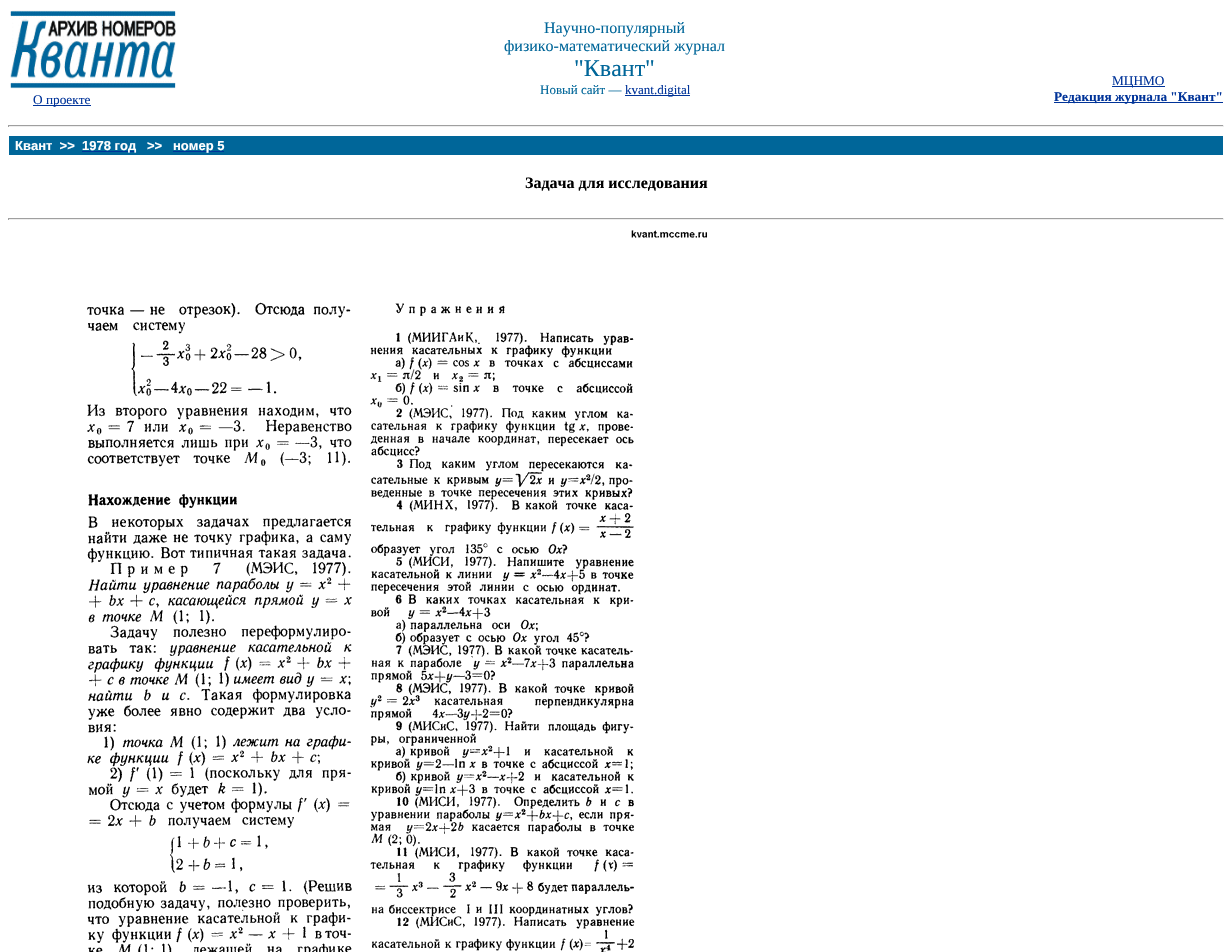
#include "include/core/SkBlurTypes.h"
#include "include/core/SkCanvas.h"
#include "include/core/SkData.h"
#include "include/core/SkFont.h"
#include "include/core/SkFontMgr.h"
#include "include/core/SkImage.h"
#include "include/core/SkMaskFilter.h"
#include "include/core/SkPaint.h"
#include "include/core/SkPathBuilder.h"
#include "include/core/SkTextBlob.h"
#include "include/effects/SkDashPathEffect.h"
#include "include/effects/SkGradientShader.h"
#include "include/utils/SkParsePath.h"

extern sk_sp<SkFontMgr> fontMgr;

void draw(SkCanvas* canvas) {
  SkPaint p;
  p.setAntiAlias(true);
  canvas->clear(SK_ColorWHITE);
  canvas->drawImageRect(SkImages::DeferredFromEncodedData(SkData::MakeFromFileName("images/1.png")), SkRect::MakeLTRB(10, 10, 176, 89), SkSamplingOptions());
  p.setColor(SkColorSetRGB(0, 51, 153));
  canvas->drawRect(SkRect::MakeLTRB(33, 105, 91, 106), p);
  canvas->drawRect(SkRect::MakeLTRB(625, 95, 690, 96), p);
  canvas->drawRect(SkRect::MakeLTRB(1112, 86, 1165, 87), p);
  canvas->drawRect(SkRect::MakeLTRB(1054, 102, 1223, 103), p);
  p.setColor(SkColorSetRGB(159, 159, 159));
  canvas->drawRect(SkRect::MakeLTRB(8, 125, 1224, 126), p);
  p.setColor(SkColorSetRGB(238, 238, 238));
  canvas->drawRect(SkRect::MakeLTRB(1223, 125, 1224, 127), p);
  canvas->drawRect(SkRect::MakeLTRB(8, 126, 1224, 127), p);
  p.setColor(SkColorSetRGB(159, 159, 159));
  canvas->drawRect(SkRect::MakeLTRB(8, 125, 9, 127), p);
  p.setColor(SkColorSetRGB(0, 102, 153));
  canvas->drawRect(SkRect::MakeLTRB(9, 136, 1223, 155), p);
  p.setColor(SkColorSetRGB(0, 51, 153));
  canvas->drawRect(SkRect::MakeLTRB(82, 151, 136, 152), p);
  canvas->drawRect(SkRect::MakeLTRB(173, 151, 224, 152), p);
  p.setColor(SkColorSetRGB(159, 159, 159));
  canvas->drawRect(SkRect::MakeLTRB(8, 218, 1224, 219), p);
  p.setColor(SkColorSetRGB(238, 238, 238));
  canvas->drawRect(SkRect::MakeLTRB(1223, 218, 1224, 220), p);
  canvas->drawRect(SkRect::MakeLTRB(8, 219, 1224, 220), p);
  p.setColor(SkColorSetRGB(159, 159, 159));
  canvas->drawRect(SkRect::MakeLTRB(8, 218, 9, 220), p);
  canvas->drawImageRect(SkImages::DeferredFromEncodedData(SkData::MakeFromFileName("images/2.png")), SkRect::MakeLTRB(87, 230, 707, 952), SkSamplingOptions());
  SkFont font1(fontMgr->matchFamilyStyle("Liberation Serif", SkFontStyle::Normal()), 13.3f);
  font1.setSubpixel(true);
  p.setColor(SkColorSetRGB(0, 51, 153));
  canvas->drawString("О проекте", 33, 104, font1, p);
  SkFont font2(fontMgr->matchFamilyStyle("Liberation Serif", SkFontStyle::Normal()), 16);
  font2.setSubpixel(true);
  p.setColor(SkColorSetRGB(0, 102, 153));
  canvas->drawString("Научно-популярный", 544, 33, font2, p);
  canvas->drawString("физико-математический журнал", 504, 51, font2, p);
  SkFont font3(fontMgr->matchFamilyStyle("Liberation Serif", SkFontStyle::Normal()), 24);
  font3.setSubpixel(true);
  canvas->drawString("\"Квант\"", 574, 76, font3, p);
  SkFont font4(fontMgr->matchFamilyStyle("Liberation Serif", SkFontStyle::Normal()), 13);
  font4.setSubpixel(true);
  canvas->drawString("Новый сайт —", 540, 94, font4, p);
  p.setColor(SkColorSetRGB(0, 51, 153));
  canvas->drawString("kvant.digital", 625, 94, font4, p);
  canvas->drawString("МЦНМО", 1112, 85, font1, p);
  SkFont font5(fontMgr->matchFamilyStyle("Liberation Serif", SkFontStyle::Bold()), 13.3f);
  font5.setSubpixel(true);
  canvas->drawString("Редакция журнала \"Квант\"", 1054, 101, font5, p);
  SkFont font6(fontMgr->matchFamilyStyle("Liberation Sans", SkFontStyle::Bold()), 13);
  font6.setSubpixel(true);
  p.setColor(SK_ColorWHITE);
  canvas->drawString("Квант  >>", 15, 150, font6, p);
  canvas->drawString("1978 год", 82, 150, font6, p);
  canvas->drawString(">>", 147, 150, font6, p);
  canvas->drawString("номер 5", 173, 150, font6, p);
  SkFont font7(fontMgr->matchFamilyStyle("Liberation Serif", SkFontStyle::Bold()), 16);
  font7.setSubpixel(true);
  p.setColor(SK_ColorBLACK);
  canvas->drawString("Задача для исследования", 525, 188, font7, p);
}
